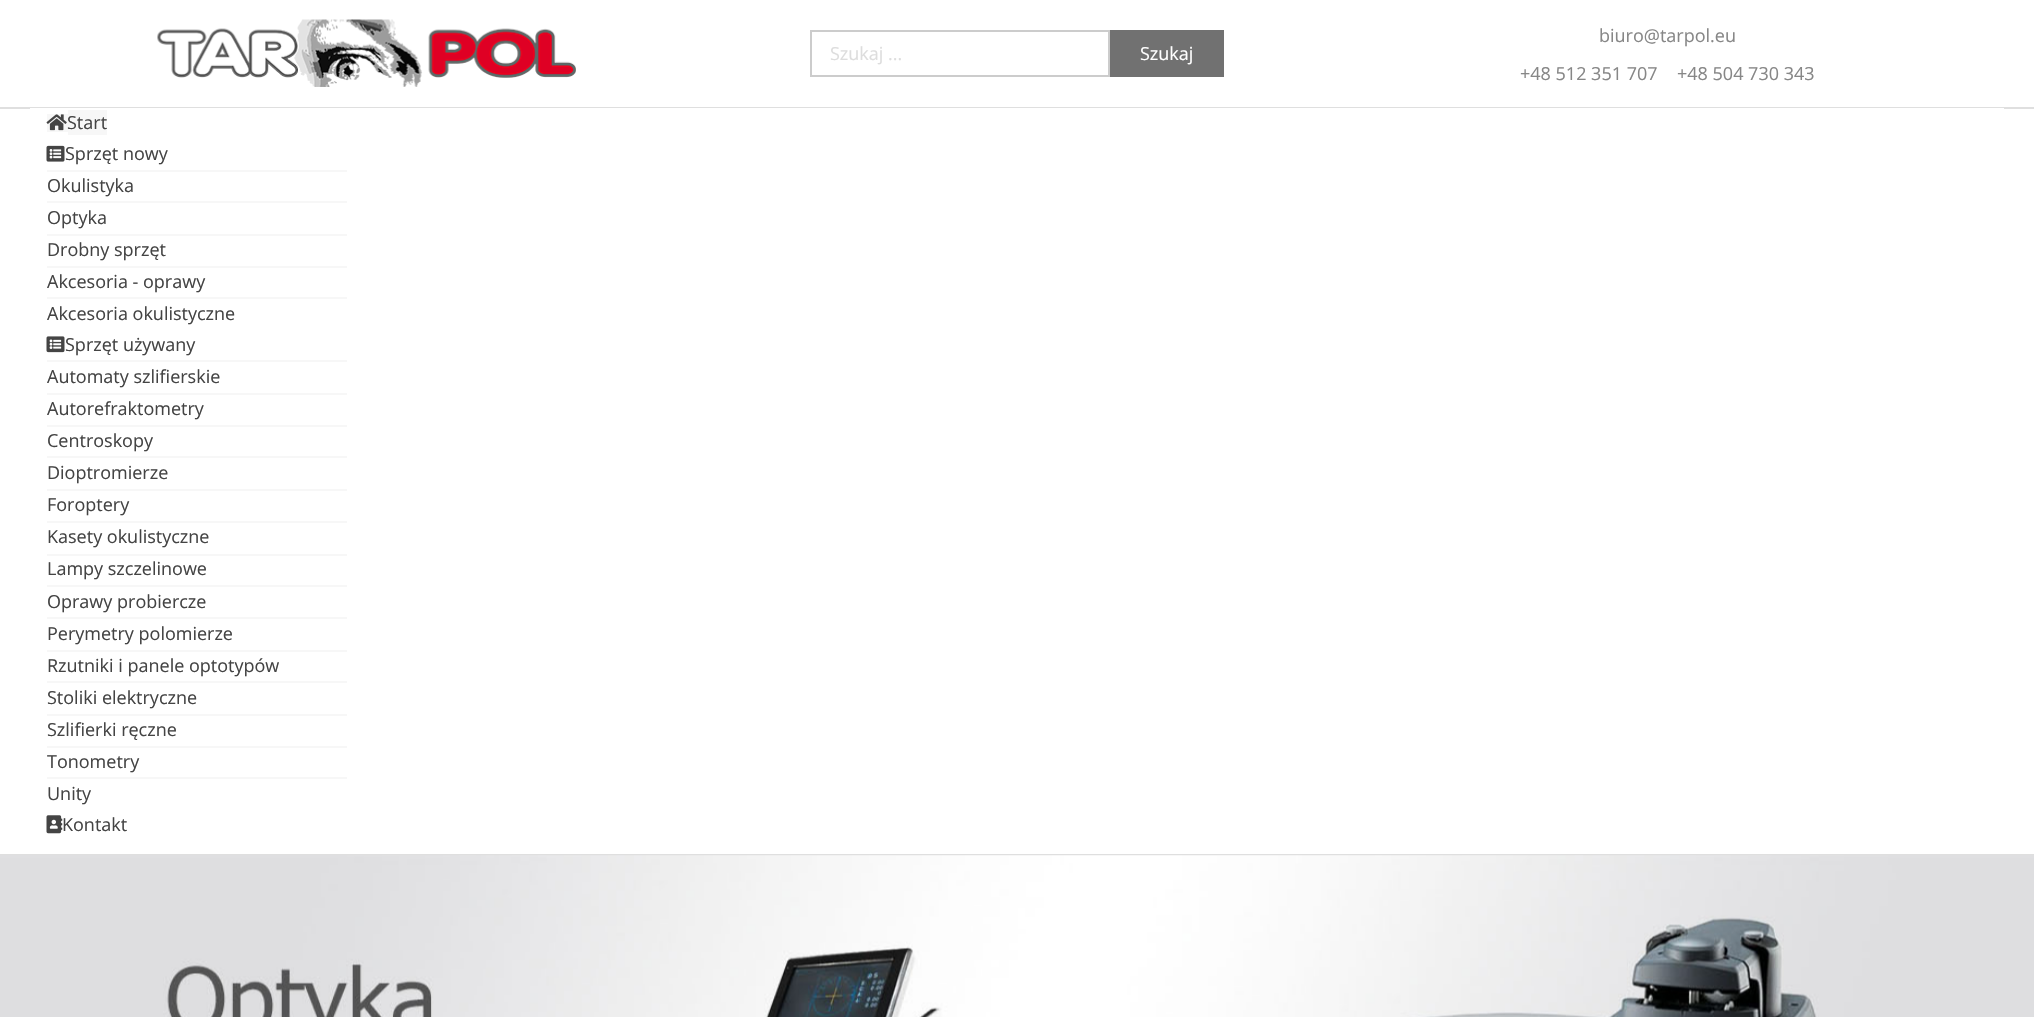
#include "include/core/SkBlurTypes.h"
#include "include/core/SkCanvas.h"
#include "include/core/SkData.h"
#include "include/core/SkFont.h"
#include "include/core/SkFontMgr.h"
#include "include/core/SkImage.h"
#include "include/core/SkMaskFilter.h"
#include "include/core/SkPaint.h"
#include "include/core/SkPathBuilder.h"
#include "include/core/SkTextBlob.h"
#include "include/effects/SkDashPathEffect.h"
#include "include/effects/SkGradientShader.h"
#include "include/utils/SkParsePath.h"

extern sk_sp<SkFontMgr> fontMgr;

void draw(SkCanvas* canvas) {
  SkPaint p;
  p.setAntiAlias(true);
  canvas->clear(SK_ColorWHITE);
  p.setColor(SkColorSetRGB(223, 223, 223));
  canvas->drawRect(SkRect::MakeLTRB(0, 107, 2034, 109), p);
  canvas->drawImageRect(SkImages::DeferredFromEncodedData(SkData::MakeFromFileName("images/1.png")), SkRect::MakeLTRB(157, 19, 576, 87), SkSamplingOptions());
  p.setStyle(SkPaint::kStroke_Style);
  p.setStrokeWidth(2);
  p.setColor(SkColorSetRGB(204, 204, 204));
  canvas->drawRect(SkRect::MakeLTRB(811, 31, 1109, 76), p);
  p.setStyle(SkPaint::kFill_Style);
  p.setColor(SkColorSetRGB(113, 113, 113));
  canvas->drawRect(SkRect::MakeLTRB(1110, 30, 1224, 77), p);
  p.setColor(SkColorSetRGB(223, 223, 223));
  canvas->drawRect(SkRect::MakeLTRB(0, 854, 2034, 856), p);
  p.setColor(SK_ColorWHITE);
  canvas->drawRect(SkRect::MakeLTRB(30, 108, 2004, 109), p);
  p.setColor(SkColorSetRGB(247, 247, 247));
  canvas->drawRect(SkRect::MakeLTRB(47, 114, 68, 132), p);
  canvas->drawRect(SkRect::MakeLTRB(68, 110, 107, 135), p);
  canvas->drawImageRect(SkImages::DeferredFromEncodedData(SkData::MakeFromFileName("images/2.png")), SkRect::MakeLTRB(46, 114, 67, 131), SkSamplingOptions());
  canvas->drawImageRect(SkImages::DeferredFromEncodedData(SkData::MakeFromFileName("images/3.png")), SkRect::MakeLTRB(46, 145, 65, 162), SkSamplingOptions());
  canvas->drawRect(SkRect::MakeLTRB(47, 170, 347, 172), p);
  canvas->drawRect(SkRect::MakeLTRB(47, 201, 347, 203), p);
  canvas->drawRect(SkRect::MakeLTRB(47, 234, 347, 236), p);
  canvas->drawRect(SkRect::MakeLTRB(47, 266, 347, 268), p);
  canvas->drawRect(SkRect::MakeLTRB(47, 297, 347, 299), p);
  canvas->drawImageRect(SkImages::DeferredFromEncodedData(SkData::MakeFromFileName("images/4.png")), SkRect::MakeLTRB(46, 336, 65, 353), SkSamplingOptions());
  canvas->drawRect(SkRect::MakeLTRB(47, 360, 347, 362), p);
  canvas->drawRect(SkRect::MakeLTRB(47, 393, 347, 395), p);
  canvas->drawRect(SkRect::MakeLTRB(47, 425, 347, 427), p);
  canvas->drawRect(SkRect::MakeLTRB(47, 456, 347, 458), p);
  canvas->drawRect(SkRect::MakeLTRB(47, 489, 347, 491), p);
  canvas->drawRect(SkRect::MakeLTRB(47, 521, 347, 523), p);
  canvas->drawRect(SkRect::MakeLTRB(47, 554, 347, 556), p);
  canvas->drawRect(SkRect::MakeLTRB(47, 585, 347, 587), p);
  canvas->drawRect(SkRect::MakeLTRB(47, 617, 347, 619), p);
  canvas->drawRect(SkRect::MakeLTRB(47, 650, 347, 652), p);
  canvas->drawRect(SkRect::MakeLTRB(47, 681, 347, 683), p);
  canvas->drawRect(SkRect::MakeLTRB(47, 714, 347, 716), p);
  canvas->drawRect(SkRect::MakeLTRB(47, 746, 347, 748), p);
  canvas->drawRect(SkRect::MakeLTRB(47, 777, 347, 779), p);
  canvas->drawImageRect(SkImages::DeferredFromEncodedData(SkData::MakeFromFileName("images/5.png")), SkRect::MakeLTRB(46, 815, 63, 834), SkSamplingOptions());
  canvas->drawImageRect(SkImages::DeferredFromEncodedData(SkData::MakeFromFileName("images/6.png")), SkRect::MakeLTRB(0, 855, 2034, 1017), SkSamplingOptions());
  SkFont font1(fontMgr->matchFamilyStyle("Open Sans", SkFontStyle::Normal()), 18);
  font1.setSubpixel(true);
  p.setColor(SkColorSetRGB(221, 221, 221));
  canvas->drawString("Szukaj ...", 830, 60, font1, p);
  p.setColor(SK_ColorWHITE);
  canvas->drawString("Szukaj", 1140, 60, font1, p);
  p.setColor(SkColorSetRGB(135, 135, 135));
  canvas->drawString("biuro@tarpol.eu", 1599, 42, font1, p);
  canvas->drawString("+48 512 351 707", 1520, 80, font1, p);
  canvas->drawString("+48 504 730 343", 1677, 80, font1, p);
  p.setColor(SkColorSetRGB(68, 68, 68));
  canvas->drawString("Start", 67, 129, font1, p);
  canvas->drawString("Sprzęt nowy", 65, 160, font1, p);
  canvas->drawString("Okulistyka", 47, 192, font1, p);
  canvas->drawString("Optyka", 47, 224, font1, p);
  canvas->drawString("Drobny sprzęt", 47, 256, font1, p);
  canvas->drawString("Akcesoria - oprawy", 47, 288, font1, p);
  canvas->drawString("Akcesoria okulistyczne", 47, 320, font1, p);
  canvas->drawString("Sprzęt używany", 65, 351, font1, p);
  canvas->drawString("Automaty szlifierskie", 47, 383, font1, p);
  canvas->drawString("Autorefraktometry", 47, 415, font1, p);
  canvas->drawString("Centroskopy", 47, 447, font1, p);
  canvas->drawString("Dioptromierze", 47, 479, font1, p);
  canvas->drawString("Foroptery", 47, 511, font1, p);
  canvas->drawString("Kasety okulistyczne", 47, 543, font1, p);
  canvas->drawString("Lampy szczelinowe", 47, 575, font1, p);
  canvas->drawString("Oprawy probiercze", 47, 608, font1, p);
  canvas->drawString("Perymetry polomierze", 47, 640, font1, p);
  canvas->drawString("Rzutniki i panele optotypów", 47, 672, font1, p);
  canvas->drawString("Stoliki elektryczne", 47, 704, font1, p);
  canvas->drawString("Szlifierki ręczne", 47, 736, font1, p);
  canvas->drawString("Tonometry", 47, 768, font1, p);
  canvas->drawString("Unity", 47, 800, font1, p);
  canvas->drawString("Kontakt", 62, 831, font1, p);
}
